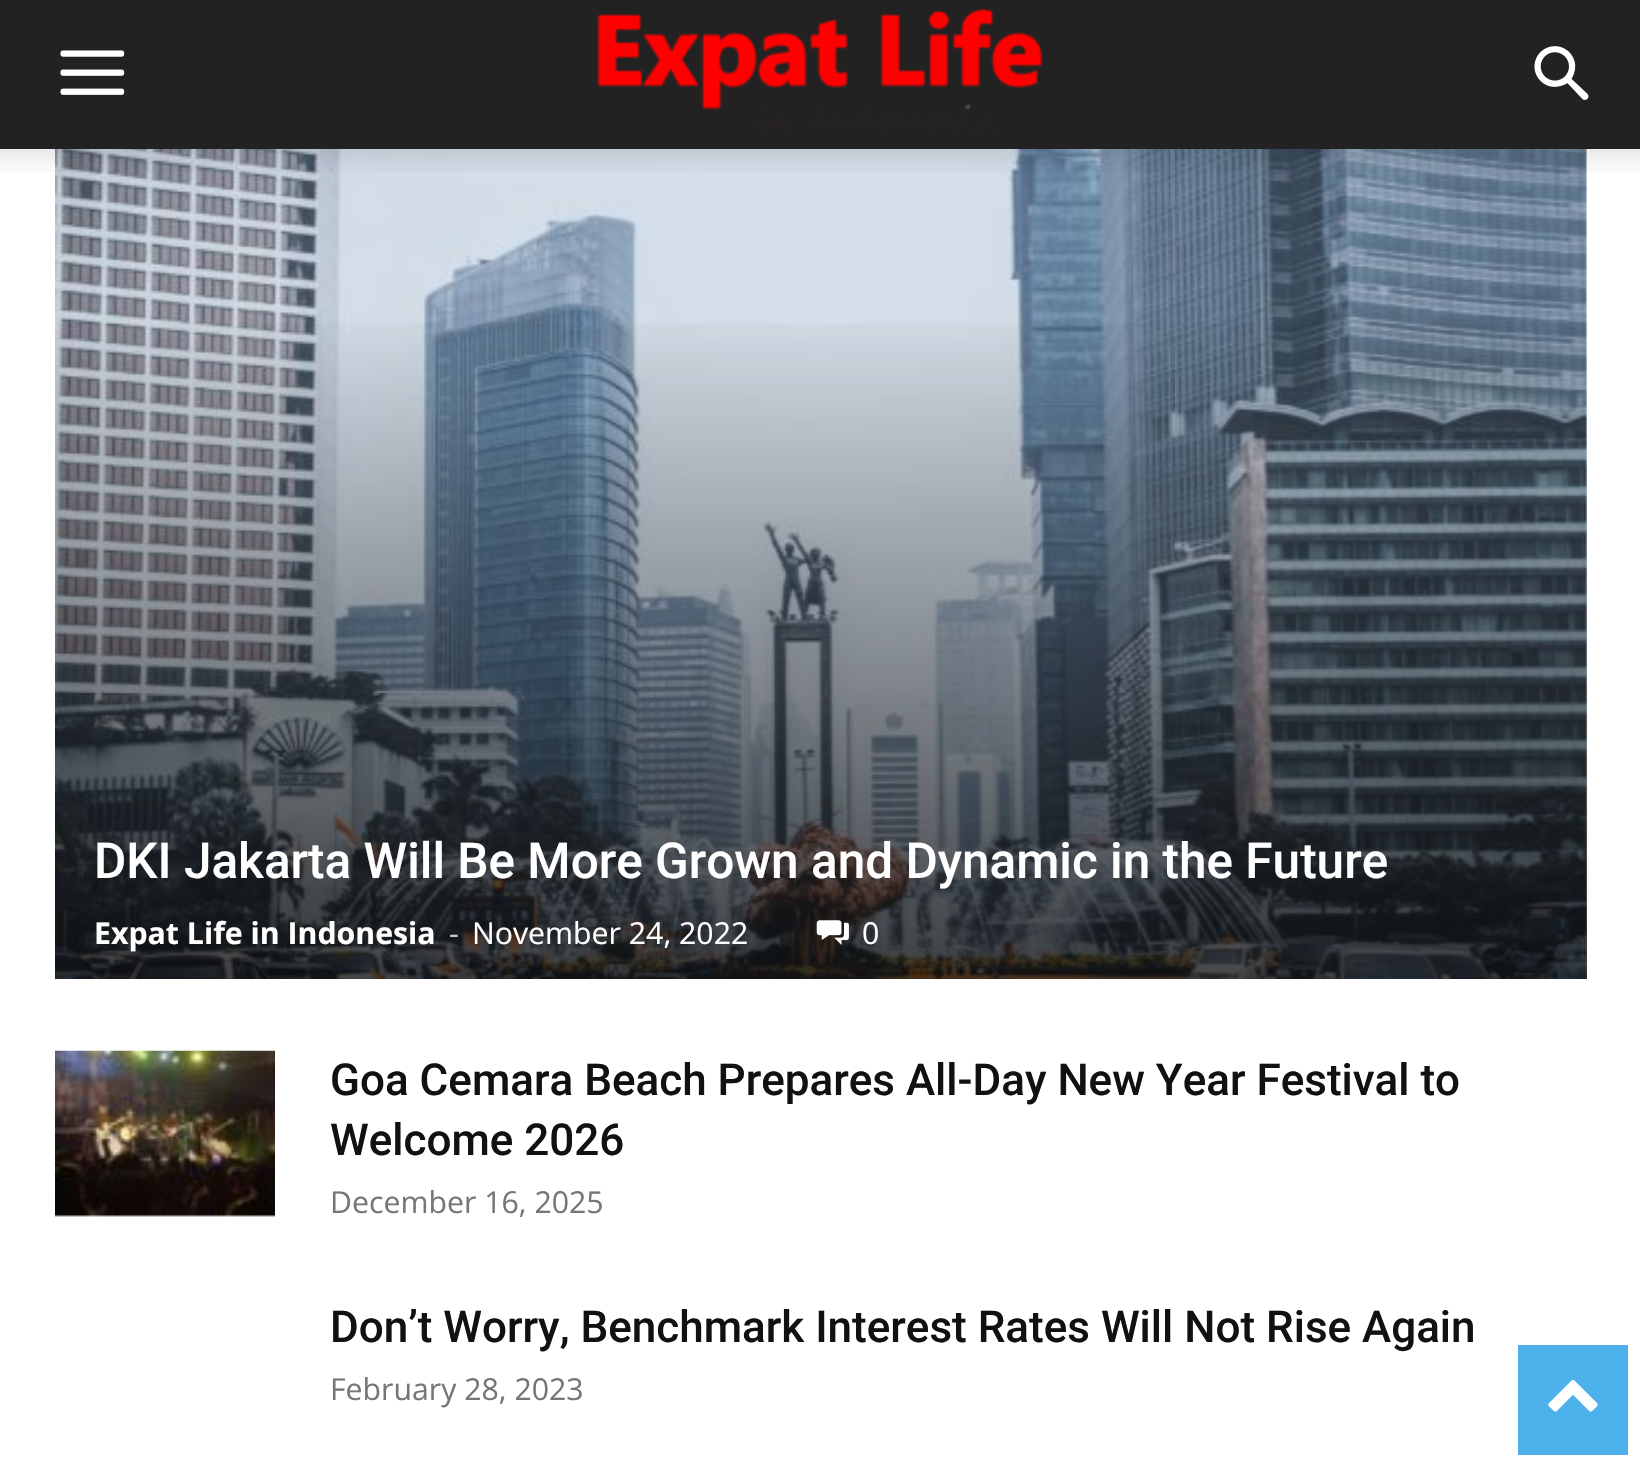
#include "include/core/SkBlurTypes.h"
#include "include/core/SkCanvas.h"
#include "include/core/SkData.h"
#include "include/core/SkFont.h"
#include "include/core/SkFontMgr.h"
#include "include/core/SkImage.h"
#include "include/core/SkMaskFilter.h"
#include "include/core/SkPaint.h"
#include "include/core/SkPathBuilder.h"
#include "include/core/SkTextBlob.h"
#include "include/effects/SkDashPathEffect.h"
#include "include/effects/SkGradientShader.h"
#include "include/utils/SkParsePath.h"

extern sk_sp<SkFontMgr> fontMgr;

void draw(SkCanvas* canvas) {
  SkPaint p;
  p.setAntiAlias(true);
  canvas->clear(SK_ColorWHITE);
  p.setColor(SkColorSetRGB(34, 34, 34));
  canvas->drawRect(SkRect::MakeLTRB(0, 0, 1640, 149), p);
  canvas->drawImageRect(SkImages::DeferredFromEncodedData(SkData::MakeFromFileName("images/1.png")), SkRect::MakeLTRB(60, 50, 125, 95), SkSamplingOptions());
  canvas->drawImageRect(SkImages::DeferredFromEncodedData(SkData::MakeFromFileName("images/2.png")), SkRect::MakeLTRB(596, 8, 1043, 134), SkSamplingOptions());
  canvas->drawImageRect(SkImages::DeferredFromEncodedData(SkData::MakeFromFileName("images/3.png")), SkRect::MakeLTRB(1534, 46, 1589, 100), SkSamplingOptions());
  canvas->drawImageRect(SkImages::DeferredFromEncodedData(SkData::MakeFromFileName("images/5.png")), SkRect::MakeLTRB(55, 149, 1587, 979), SkSamplingOptions());
  canvas->drawImageRect(SkImages::DeferredFromEncodedData(SkData::MakeFromFileName("images/4.png")), SkRect::MakeLTRB(0, 149, 1640, 172), SkSamplingOptions());
  {
    const SkColor colors[] = {SkColorSetARGB(0, 0, 0, 0), SkColorSetARGB(179, 0, 0, 0)};
    const float stops[] = {0, 1};
    const SkPoint ends[] = {{821, 302}, {821, 979}};
    p.setShader(SkGradientShader::MakeLinear(ends, colors, stops, 2, SkTileMode::kClamp));
    p.setAlpha(255);
  }
  canvas->drawRect(SkRect::MakeLTRB(55, 323, 1587, 979), p);
  canvas->drawImageRect(SkImages::DeferredFromEncodedData(SkData::MakeFromFileName("images/6.png")), SkRect::MakeLTRB(816, 920, 849, 945), SkSamplingOptions());
  canvas->drawImageRect(SkImages::DeferredFromEncodedData(SkData::MakeFromFileName("images/7.png")), SkRect::MakeLTRB(55, 1050, 275, 1217), SkSamplingOptions());
  p.setShader(nullptr);
  p.setColor(SkColorSetRGB(77, 178, 236));
  canvas->drawRect(SkRect::MakeLTRB(1518, 1345, 1628, 1455), p);
  canvas->drawImageRect(SkImages::DeferredFromEncodedData(SkData::MakeFromFileName("images/8.png")), SkRect::MakeLTRB(1548, 1380, 1598, 1412), SkSamplingOptions());
  SkFont font1(fontMgr->matchFamilyStyle("Roboto", SkFontStyle(500, SkFontStyle::kNormal_Width, SkFontStyle::kUpright_Slant)), 49.5f);
  font1.setSubpixel(true);
  p.setColor(SK_ColorWHITE);
  canvas->drawString("DKI Jakarta Will Be More Grown and Dynamic in the Future", 94, 878, font1, p);
  SkFont font2(fontMgr->matchFamilyStyle("Open Sans", SkFontStyle::Bold()), 30.25f);
  font2.setSubpixel(true);
  canvas->drawString("Expat Life in Indonesia", 94, 944, font2, p);
  SkFont font3(fontMgr->matchFamilyStyle("Open Sans", SkFontStyle::Normal()), 30.25f);
  font3.setSubpixel(true);
  p.setColor(SkColorSetRGB(204, 204, 204));
  canvas->drawString("-", 449, 944, font3, p);
  p.setColor(SK_ColorWHITE);
  canvas->drawString("November 24, 2022", 472, 944, font3, p);
  canvas->drawString("0", 862, 944, font3, p);
  SkFont font4(fontMgr->matchFamilyStyle("Roboto", SkFontStyle(500, SkFontStyle::kNormal_Width, SkFontStyle::kUpright_Slant)), 44);
  font4.setSubpixel(true);
  p.setColor(SkColorSetRGB(17, 17, 17));
  canvas->drawString("Goa Cemara Beach Prepares All-Day New Year Festival to", 330, 1095, font4, p);
  canvas->drawString("Welcome 2026", 330, 1155, font4, p);
  p.setColor(SkColorSetRGB(118, 118, 118));
  canvas->drawString("December 16, 2025", 330, 1213, font3, p);
  p.setColor(SkColorSetRGB(17, 17, 17));
  canvas->drawString("Don’t Worry, Benchmark Interest Rates Will Not Rise Again", 330, 1342, font4, p);
  p.setColor(SkColorSetRGB(118, 118, 118));
  canvas->drawString("February 28, 2023", 330, 1400, font3, p);
}
